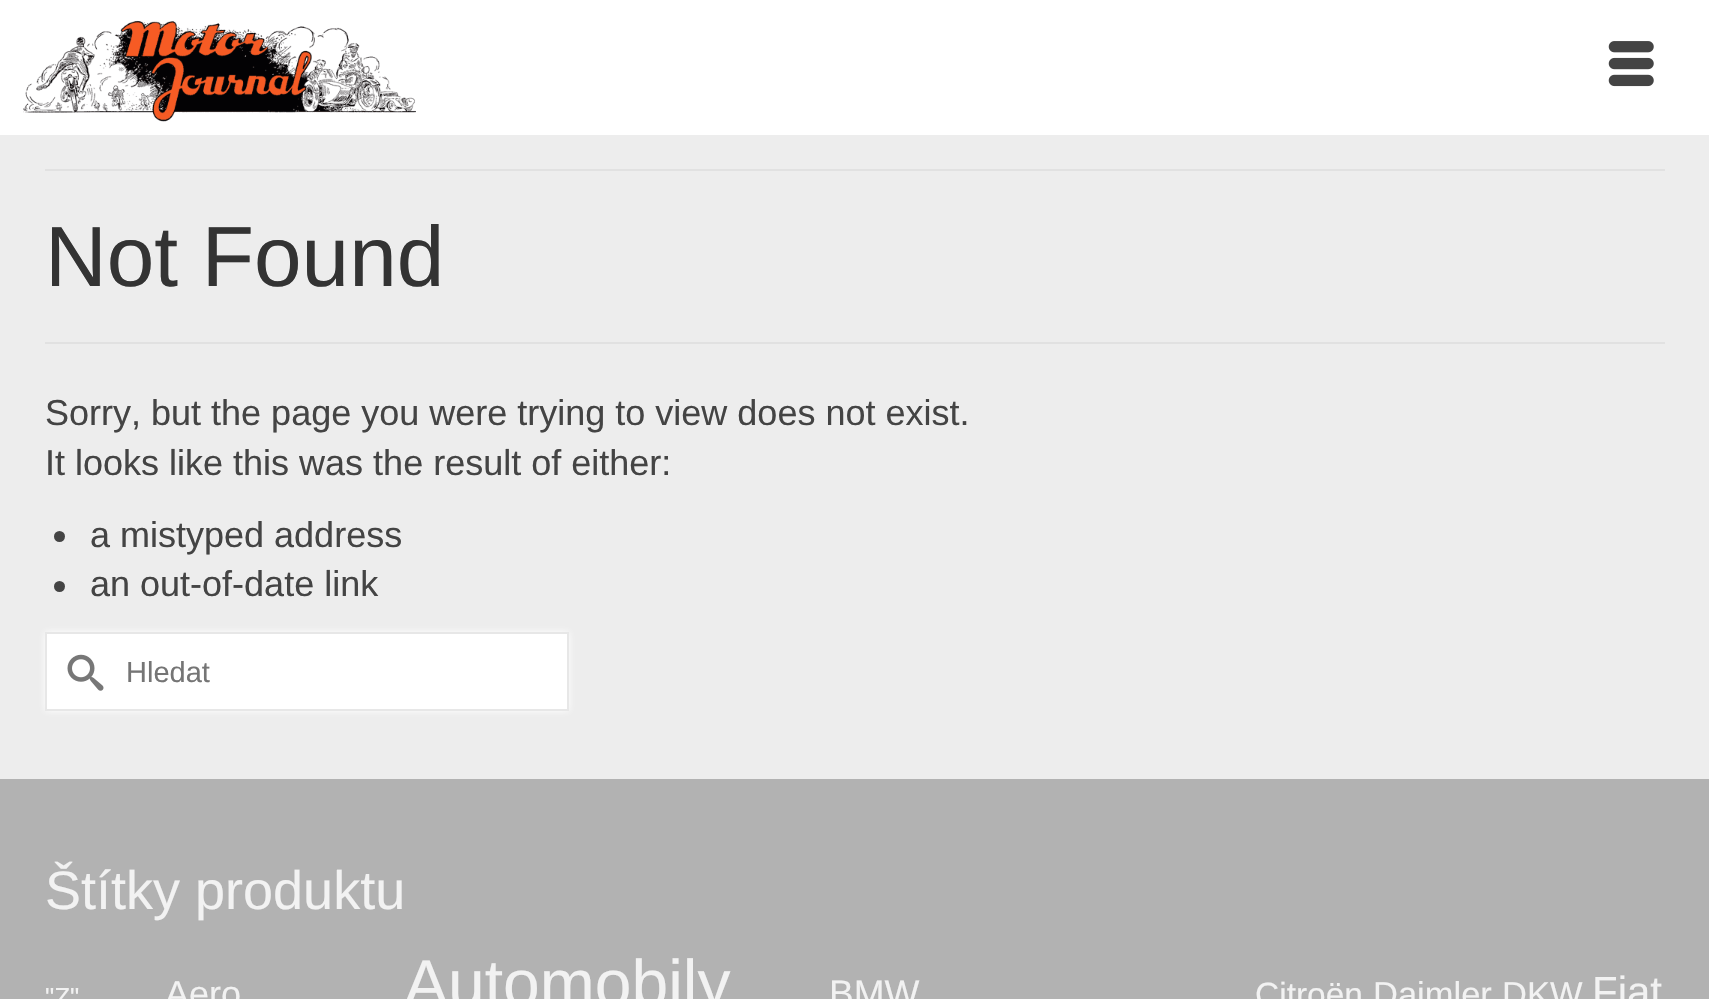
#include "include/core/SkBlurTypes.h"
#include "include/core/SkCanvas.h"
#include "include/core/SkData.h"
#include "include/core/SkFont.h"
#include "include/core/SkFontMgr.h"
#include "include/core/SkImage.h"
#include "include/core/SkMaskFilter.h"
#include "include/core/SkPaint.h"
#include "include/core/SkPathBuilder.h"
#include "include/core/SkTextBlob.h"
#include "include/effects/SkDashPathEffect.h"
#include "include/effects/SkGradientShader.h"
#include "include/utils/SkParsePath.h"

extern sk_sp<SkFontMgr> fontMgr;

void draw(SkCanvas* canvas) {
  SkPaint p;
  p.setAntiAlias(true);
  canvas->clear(SK_ColorWHITE);
  canvas->drawImageRect(SkImages::DeferredFromEncodedData(SkData::MakeFromFileName("images/1.png")), SkRect::MakeLTRB(23, 20, 416, 122), SkSamplingOptions());
  canvas->drawImageRect(SkImages::DeferredFromEncodedData(SkData::MakeFromFileName("images/2.png")), SkRect::MakeLTRB(1608, 41, 1654, 87), SkSamplingOptions());
  p.setColor(SkColorSetRGB(237, 237, 237));
  canvas->drawRect(SkRect::MakeLTRB(0, 135, 1709, 779), p);
  p.setColor(SkColorSetRGB(225, 225, 225));
  canvas->drawRect(SkRect::MakeLTRB(45, 169, 1665, 171), p);
  canvas->drawRect(SkRect::MakeLTRB(45, 342, 1665, 344), p);
  p.setColor(SkColorSetRGB(68, 68, 68));
  canvas->drawCircle(59.5f, 536.5f, 5.5f, p);
  canvas->drawCircle(59.5f, 586.5f, 5.5f, p);
  p.setColor(SK_ColorWHITE);
  p.setMaskFilter(SkMaskFilter::MakeBlur(kNormal_SkBlurStyle, 3.5f));
  canvas->drawRect(SkRect::MakeLTRB(45, 632, 569, 711), p);
  p.setMaskFilter(nullptr);
  canvas->drawRect(SkRect::MakeLTRB(46, 633, 568, 710), p);
  p.setStyle(SkPaint::kStroke_Style);
  p.setStrokeWidth(2);
  p.setColor(SkColorSetRGB(231, 231, 231));
  canvas->drawRect(SkRect::MakeLTRB(46, 633, 568, 710), p);
  canvas->drawImageRect(SkImages::DeferredFromEncodedData(SkData::MakeFromFileName("images/3.png")), SkRect::MakeLTRB(67, 654, 104, 691), SkSamplingOptions());
  p.setStyle(SkPaint::kFill_Style);
  p.setColor(SkColorSetRGB(178, 178, 178));
  canvas->drawRect(SkRect::MakeLTRB(0, 779, 1709, 999), p);
  SkFont font1(fontMgr->matchFamilyStyle("Liberation Sans", SkFontStyle::Normal()), 85.5f);
  font1.setSubpixel(true);
  p.setColor(SkColorSetRGB(51, 51, 51));
  canvas->drawString("Not Found", 45, 286, font1, p);
  SkFont font2(fontMgr->matchFamilyStyle("Liberation Sans", SkFontStyle::Normal()), 36);
  font2.setSubpixel(true);
  p.setColor(SkColorSetRGB(68, 68, 68));
  canvas->drawString("Sorry, but the page you were trying to view does not exist.", 45, 425, font2, p);
  canvas->drawString("It looks like this was the result of either:", 45, 475, font2, p);
  canvas->drawString("a mistyped address", 90, 547, font2, p);
  canvas->drawString("an out-of-date link", 90, 596, font2, p);
  SkFont font3(fontMgr->matchFamilyStyle("Liberation Sans", SkFontStyle::Normal()), 29);
  font3.setSubpixel(true);
  p.setColor(SkColorSetRGB(117, 117, 117));
  canvas->drawString("Hledat", 126, 682, font3, p);
  SkFont font4(fontMgr->matchFamilyStyle("Liberation Sans", SkFontStyle::Normal()), 54);
  font4.setSubpixel(true);
  p.setColor(SkColorSetRGB(242, 242, 242));
  canvas->drawString("Štítky produktu", 45, 909, font4, p);
  SkFont font5(fontMgr->matchFamilyStyle("Liberation Sans", SkFontStyle::Normal()), 26);
  font5.setSubpixel(true);
  canvas->drawString("\"Z\"", 45, 1006, font5, p);
  canvas->drawString("Aero", 165, 1006, font2, p);
  SkFont font6(fontMgr->matchFamilyStyle("Liberation Sans", SkFontStyle::Normal()), 66);
  font6.setSubpixel(true);
  canvas->drawString("Automobily", 404, 1006, font6, p);
  SkFont font7(fontMgr->matchFamilyStyle("Liberation Sans", SkFontStyle::Normal()), 37);
  font7.setSubpixel(true);
  canvas->drawString("BMW", 829, 1006, font7, p);
  SkFont font8(fontMgr->matchFamilyStyle("Liberation Sans", SkFontStyle::Normal()), 33.5f);
  font8.setSubpixel(true);
  canvas->drawString("Citroën", 1255, 1006, font8, p);
  SkFont font9(fontMgr->matchFamilyStyle("Liberation Sans", SkFontStyle::Normal()), 34.5f);
  font9.setSubpixel(true);
  canvas->drawString("Daimler", 1373, 1006, font9, p);
  canvas->drawString("DKW", 1502, 1006, font9, p);
  SkFont font10(fontMgr->matchFamilyStyle("Liberation Sans", SkFontStyle::Normal()), 42);
  font10.setSubpixel(true);
  canvas->drawString("Fiat", 1592, 1006, font10, p);
}
